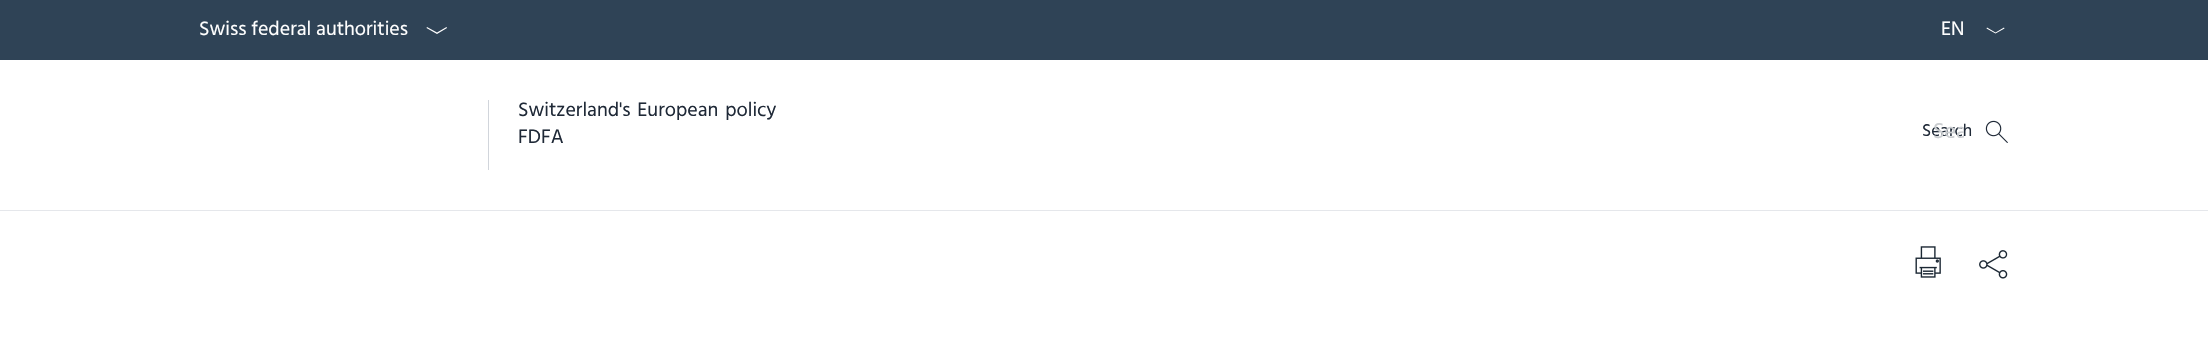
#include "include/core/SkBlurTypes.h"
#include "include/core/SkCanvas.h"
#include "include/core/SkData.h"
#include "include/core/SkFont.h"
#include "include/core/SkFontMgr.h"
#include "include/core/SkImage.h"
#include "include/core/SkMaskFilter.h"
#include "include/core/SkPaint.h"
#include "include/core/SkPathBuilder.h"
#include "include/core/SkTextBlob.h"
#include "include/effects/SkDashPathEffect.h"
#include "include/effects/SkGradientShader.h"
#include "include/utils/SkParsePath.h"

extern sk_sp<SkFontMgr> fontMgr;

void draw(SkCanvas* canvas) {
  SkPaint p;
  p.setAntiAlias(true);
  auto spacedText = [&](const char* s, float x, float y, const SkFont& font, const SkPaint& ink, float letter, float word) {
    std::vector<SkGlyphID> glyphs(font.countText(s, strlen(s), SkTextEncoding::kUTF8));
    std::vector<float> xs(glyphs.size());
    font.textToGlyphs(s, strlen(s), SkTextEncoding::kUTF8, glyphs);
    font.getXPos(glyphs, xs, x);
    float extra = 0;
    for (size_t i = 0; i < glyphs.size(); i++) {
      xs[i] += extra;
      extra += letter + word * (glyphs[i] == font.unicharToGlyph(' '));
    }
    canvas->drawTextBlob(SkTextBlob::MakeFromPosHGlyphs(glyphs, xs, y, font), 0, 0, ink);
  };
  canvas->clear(SK_ColorWHITE);
  p.setColor(SkColorSetRGB(47, 67, 86));
  canvas->drawRect(SkRect::MakeLTRB(0, 0, 2208, 60), p);
  p.setColor(SK_ColorWHITE);
  canvas->drawPath(SkPathBuilder().moveTo(427, 27).lineTo(437, 32.5f).lineTo(446.5f, 27).lineTo(447, 28).lineTo(437, 34).lineTo(426.5f, 28).close().detach(), p);
  canvas->drawPath(SkPathBuilder().moveTo(1987, 27.5f).lineTo(1995.5f, 32.5f).lineTo(2004, 27.5f).lineTo(2004.5f, 28.5f).lineTo(1995.5f, 33.5f).lineTo(1986.5f, 28.5f).close().detach(), p);
  p.setColor(SkColorSetRGB(229, 231, 235));
  canvas->drawRect(SkRect::MakeLTRB(0, 210, 2208, 211), p);
  p.setColor(SkColorSetRGB(209, 213, 219));
  canvas->drawRect(SkRect::MakeLTRB(488, 100, 489, 170), p);
  canvas->drawImageRect(SkImages::DeferredFromEncodedData(SkData::MakeFromFileName("images/1.png")), SkRect::MakeLTRB(1985, 120, 2008, 143), SkSamplingOptions());
  canvas->drawImageRect(SkImages::DeferredFromEncodedData(SkData::MakeFromFileName("images/2.png")), SkRect::MakeLTRB(1915, 246, 1941, 278), SkSamplingOptions());
  canvas->drawImageRect(SkImages::DeferredFromEncodedData(SkData::MakeFromFileName("images/3.png")), SkRect::MakeLTRB(1979, 250, 2008, 279), SkSamplingOptions());
  SkFont font1(fontMgr->matchFamilyStyle("Hind", SkFontStyle::Normal()), 20);
  font1.setSubpixel(true);
  p.setColor(SK_ColorWHITE);
  canvas->drawString("Swiss federal authorities", 199, 35, font1, p);
  canvas->drawString("EN", 1941, 35, font1, p);
  p.setColor(SkColorSetRGB(31, 41, 55));
  spacedText("Switzerland's European policy", 518, 116, font1, p, 0, 2);
  canvas->drawString("FDFA", 518, 143, font1, p);
  SkFont font2(fontMgr->matchFamilyStyle("Hind", SkFontStyle::Normal()), 17.5f);
  font2.setSubpixel(true);
  canvas->drawString("Search", 1922, 136, font2, p);
  canvas->save();
  canvas->clipRect(SkRect::MakeLTRB(1933, 115, 1964, 151));
  SkFont font3(fontMgr->matchFamilyStyle("Hind", SkFontStyle::Normal()), 22);
  font3.setSubpixel(true);
  p.setColor(SkColorSetRGB(202, 205, 208));
  canvas->drawString("Sea", 1933, 138, font3, p);
  canvas->restore();
}
